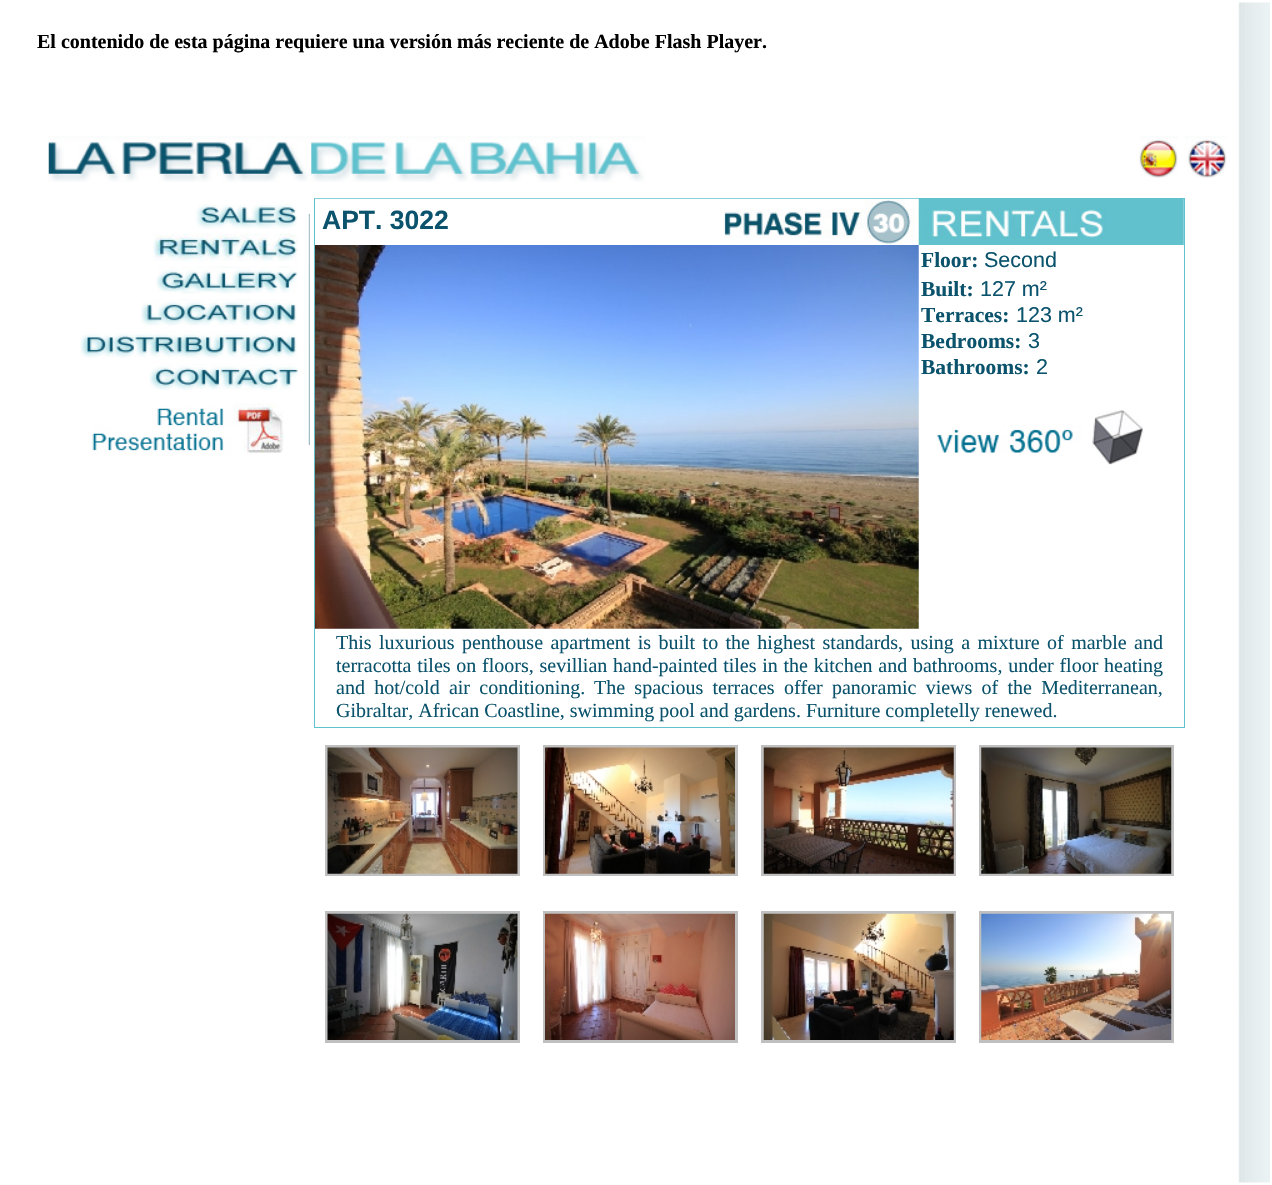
#include "include/core/SkBlurTypes.h"
#include "include/core/SkCanvas.h"
#include "include/core/SkData.h"
#include "include/core/SkFont.h"
#include "include/core/SkFontMgr.h"
#include "include/core/SkImage.h"
#include "include/core/SkMaskFilter.h"
#include "include/core/SkPaint.h"
#include "include/core/SkPathBuilder.h"
#include "include/core/SkTextBlob.h"
#include "include/effects/SkDashPathEffect.h"
#include "include/effects/SkGradientShader.h"
#include "include/utils/SkParsePath.h"

extern sk_sp<SkFontMgr> fontMgr;

void draw(SkCanvas* canvas) {
  SkPaint p;
  p.setAntiAlias(true);
  auto spacedText = [&](const char* s, float x, float y, const SkFont& font, const SkPaint& ink, float letter, float word) {
    std::vector<SkGlyphID> glyphs(font.countText(s, strlen(s), SkTextEncoding::kUTF8));
    std::vector<float> xs(glyphs.size());
    font.textToGlyphs(s, strlen(s), SkTextEncoding::kUTF8, glyphs);
    font.getXPos(glyphs, xs, x);
    float extra = 0;
    for (size_t i = 0; i < glyphs.size(); i++) {
      xs[i] += extra;
      extra += letter + word * (glyphs[i] == font.unicharToGlyph(' '));
    }
    canvas->drawTextBlob(SkTextBlob::MakeFromPosHGlyphs(glyphs, xs, y, font), 0, 0, ink);
  };
  canvas->clear(SK_ColorWHITE);
  canvas->drawImageRect(SkImages::DeferredFromEncodedData(SkData::MakeFromFileName("images/1.png")), SkRect::MakeLTRB(48, 136, 645, 182), SkSamplingOptions());
  canvas->drawImageRect(SkImages::DeferredFromEncodedData(SkData::MakeFromFileName("images/2.png")), SkRect::MakeLTRB(1139, 136, 1178, 178), SkSamplingOptions());
  canvas->drawImageRect(SkImages::DeferredFromEncodedData(SkData::MakeFromFileName("images/3.png")), SkRect::MakeLTRB(1185, 136, 1227, 178), SkSamplingOptions());
  canvas->drawImageRect(SkImages::DeferredFromEncodedData(SkData::MakeFromFileName("images/4.png")), SkRect::MakeLTRB(195, 204, 297, 229), SkSamplingOptions());
  canvas->drawImageRect(SkImages::DeferredFromEncodedData(SkData::MakeFromFileName("images/5.png")), SkRect::MakeLTRB(308, 213, 310, 445), SkSamplingOptions());
  canvas->drawImageRect(SkImages::DeferredFromEncodedData(SkData::MakeFromFileName("images/6.png")), SkRect::MakeLTRB(153, 233, 298, 261), SkSamplingOptions());
  canvas->drawImageRect(SkImages::DeferredFromEncodedData(SkData::MakeFromFileName("images/7.png")), SkRect::MakeLTRB(156, 266, 298, 294), SkSamplingOptions());
  canvas->drawImageRect(SkImages::DeferredFromEncodedData(SkData::MakeFromFileName("images/8.png")), SkRect::MakeLTRB(141, 299, 297, 326), SkSamplingOptions());
  canvas->drawImageRect(SkImages::DeferredFromEncodedData(SkData::MakeFromFileName("images/9.png")), SkRect::MakeLTRB(80, 331, 297, 358), SkSamplingOptions());
  canvas->drawImageRect(SkImages::DeferredFromEncodedData(SkData::MakeFromFileName("images/10.png")), SkRect::MakeLTRB(149, 364, 298, 390), SkSamplingOptions());
  canvas->drawImageRect(SkImages::DeferredFromEncodedData(SkData::MakeFromFileName("images/11.png")), SkRect::MakeLTRB(92, 403, 284, 455), SkSamplingOptions());
  p.setStyle(SkPaint::kStroke_Style);
  p.setStrokeWidth(1);
  p.setColor(SkColorSetRGB(97, 193, 205));
  canvas->drawRect(SkRect::MakeLTRB(314.5f, 198.5f, 1184.5f, 727.5f), p);
  canvas->drawImageRect(SkImages::DeferredFromEncodedData(SkData::MakeFromFileName("images/12.png")), SkRect::MakeLTRB(315, 198, 1184, 245), SkSamplingOptions());
  canvas->drawImageRect(SkImages::DeferredFromEncodedData(SkData::MakeFromFileName("images/13.png")), SkRect::MakeLTRB(315, 245, 919, 629), SkSamplingOptions());
  canvas->drawImageRect(SkImages::DeferredFromEncodedData(SkData::MakeFromFileName("images/14.png")), SkRect::MakeLTRB(937, 410, 1143, 465), SkSamplingOptions());
  p.setStrokeWidth(3);
  p.setColor(SkColorSetRGB(192, 192, 192));
  canvas->drawRect(SkRect::MakeLTRB(326.5f, 746.5f, 518.5f, 874.5f), p);
  canvas->drawImageRect(SkImages::DeferredFromEncodedData(SkData::MakeFromFileName("images/15.png")), SkRect::MakeLTRB(327, 747, 518, 874), SkSamplingOptions());
  canvas->drawRect(SkRect::MakeLTRB(544.5f, 746.5f, 736.5f, 874.5f), p);
  canvas->drawImageRect(SkImages::DeferredFromEncodedData(SkData::MakeFromFileName("images/16.png")), SkRect::MakeLTRB(545, 747, 735, 874), SkSamplingOptions());
  canvas->drawRect(SkRect::MakeLTRB(762.5f, 746.5f, 954.5f, 874.5f), p);
  canvas->drawImageRect(SkImages::DeferredFromEncodedData(SkData::MakeFromFileName("images/17.png")), SkRect::MakeLTRB(763, 747, 954, 874), SkSamplingOptions());
  canvas->drawRect(SkRect::MakeLTRB(980.5f, 746.5f, 1172.5f, 874.5f), p);
  canvas->drawImageRect(SkImages::DeferredFromEncodedData(SkData::MakeFromFileName("images/18.png")), SkRect::MakeLTRB(981, 747, 1172, 874), SkSamplingOptions());
  canvas->drawRect(SkRect::MakeLTRB(326.5f, 912.5f, 518.5f, 1041.5f), p);
  canvas->drawImageRect(SkImages::DeferredFromEncodedData(SkData::MakeFromFileName("images/19.png")), SkRect::MakeLTRB(327, 913, 518, 1040), SkSamplingOptions());
  canvas->drawRect(SkRect::MakeLTRB(544.5f, 912.5f, 736.5f, 1041.5f), p);
  canvas->drawImageRect(SkImages::DeferredFromEncodedData(SkData::MakeFromFileName("images/20.png")), SkRect::MakeLTRB(545, 913, 735, 1040), SkSamplingOptions());
  canvas->drawRect(SkRect::MakeLTRB(762.5f, 912.5f, 954.5f, 1041.5f), p);
  canvas->drawImageRect(SkImages::DeferredFromEncodedData(SkData::MakeFromFileName("images/21.png")), SkRect::MakeLTRB(763, 913, 954, 1040), SkSamplingOptions());
  canvas->drawRect(SkRect::MakeLTRB(980.5f, 912.5f, 1172.5f, 1041.5f), p);
  canvas->drawImageRect(SkImages::DeferredFromEncodedData(SkData::MakeFromFileName("images/22.png")), SkRect::MakeLTRB(981, 913, 1172, 1040), SkSamplingOptions());
  canvas->drawImageRect(SkImages::DeferredFromEncodedData(SkData::MakeFromFileName("images/23.png")), SkRect::MakeLTRB(1238, 2, 1270, 1183), SkSamplingOptions());
  SkFont font1(fontMgr->matchFamilyStyle("Liberation Serif", SkFontStyle::Bold()), 20);
  font1.setSubpixel(true);
  p.setStyle(SkPaint::kFill_Style);
  p.setColor(SK_ColorBLACK);
  canvas->drawString("El contenido de esta página requiere una versión más reciente de Adobe Flash Player.", 37, 48, font1, p);
  SkFont font2(fontMgr->matchFamilyStyle("Liberation Sans", SkFontStyle::Bold()), 26.5f);
  font2.setSubpixel(true);
  p.setColor(SkColorSetRGB(11, 83, 108));
  canvas->drawString("APT. 3022", 322, 229, font2, p);
  SkFont font3(fontMgr->matchFamilyStyle("Liberation Serif", SkFontStyle::Bold()), 21.5f);
  font3.setSubpixel(true);
  canvas->drawString("Floor:", 921, 267, font3, p);
  SkFont font4(fontMgr->matchFamilyStyle("Liberation Sans", SkFontStyle::Normal()), 21.5f);
  font4.setSubpixel(true);
  canvas->drawString("Second", 984, 267, font4, p);
  canvas->drawString("Built:", 921, 296, font3, p);
  canvas->drawString("127 m²", 980, 296, font4, p);
  canvas->drawString("Terraces:", 921, 322, font3, p);
  canvas->drawString("123 m²", 1016, 322, font4, p);
  canvas->drawString("Bedrooms:", 921, 348, font3, p);
  canvas->drawString("3", 1028, 348, font4, p);
  canvas->drawString("Bathrooms:", 921, 374, font3, p);
  canvas->drawString("2", 1036, 374, font4, p);
  SkFont font5(fontMgr->matchFamilyStyle("Liberation Serif", SkFontStyle::Normal()), 20);
  font5.setSubpixel(true);
  spacedText("This luxurious penthouse apartment is built to the highest standards, using a mixture of marble and", 336, 649, font5, p, 0, 2.4f);
  spacedText("terracotta tiles on floors, sevillian hand-painted tiles in the kitchen and bathrooms, under floor heating", 336, 672, font5, p, 0, 0.75f);
  spacedText("and hot/cold air conditioning.", 336, 694, font5, p, 0, 4.25f);
  spacedText("The spacious terraces offer panoramic views of the Mediterranean,", 594, 694, font5, p, 0, 4.25f);
  canvas->drawString("Gibraltar, African Coastline, swimming pool and gardens. Furniture completelly renewed.", 336, 717, font5, p);
}
